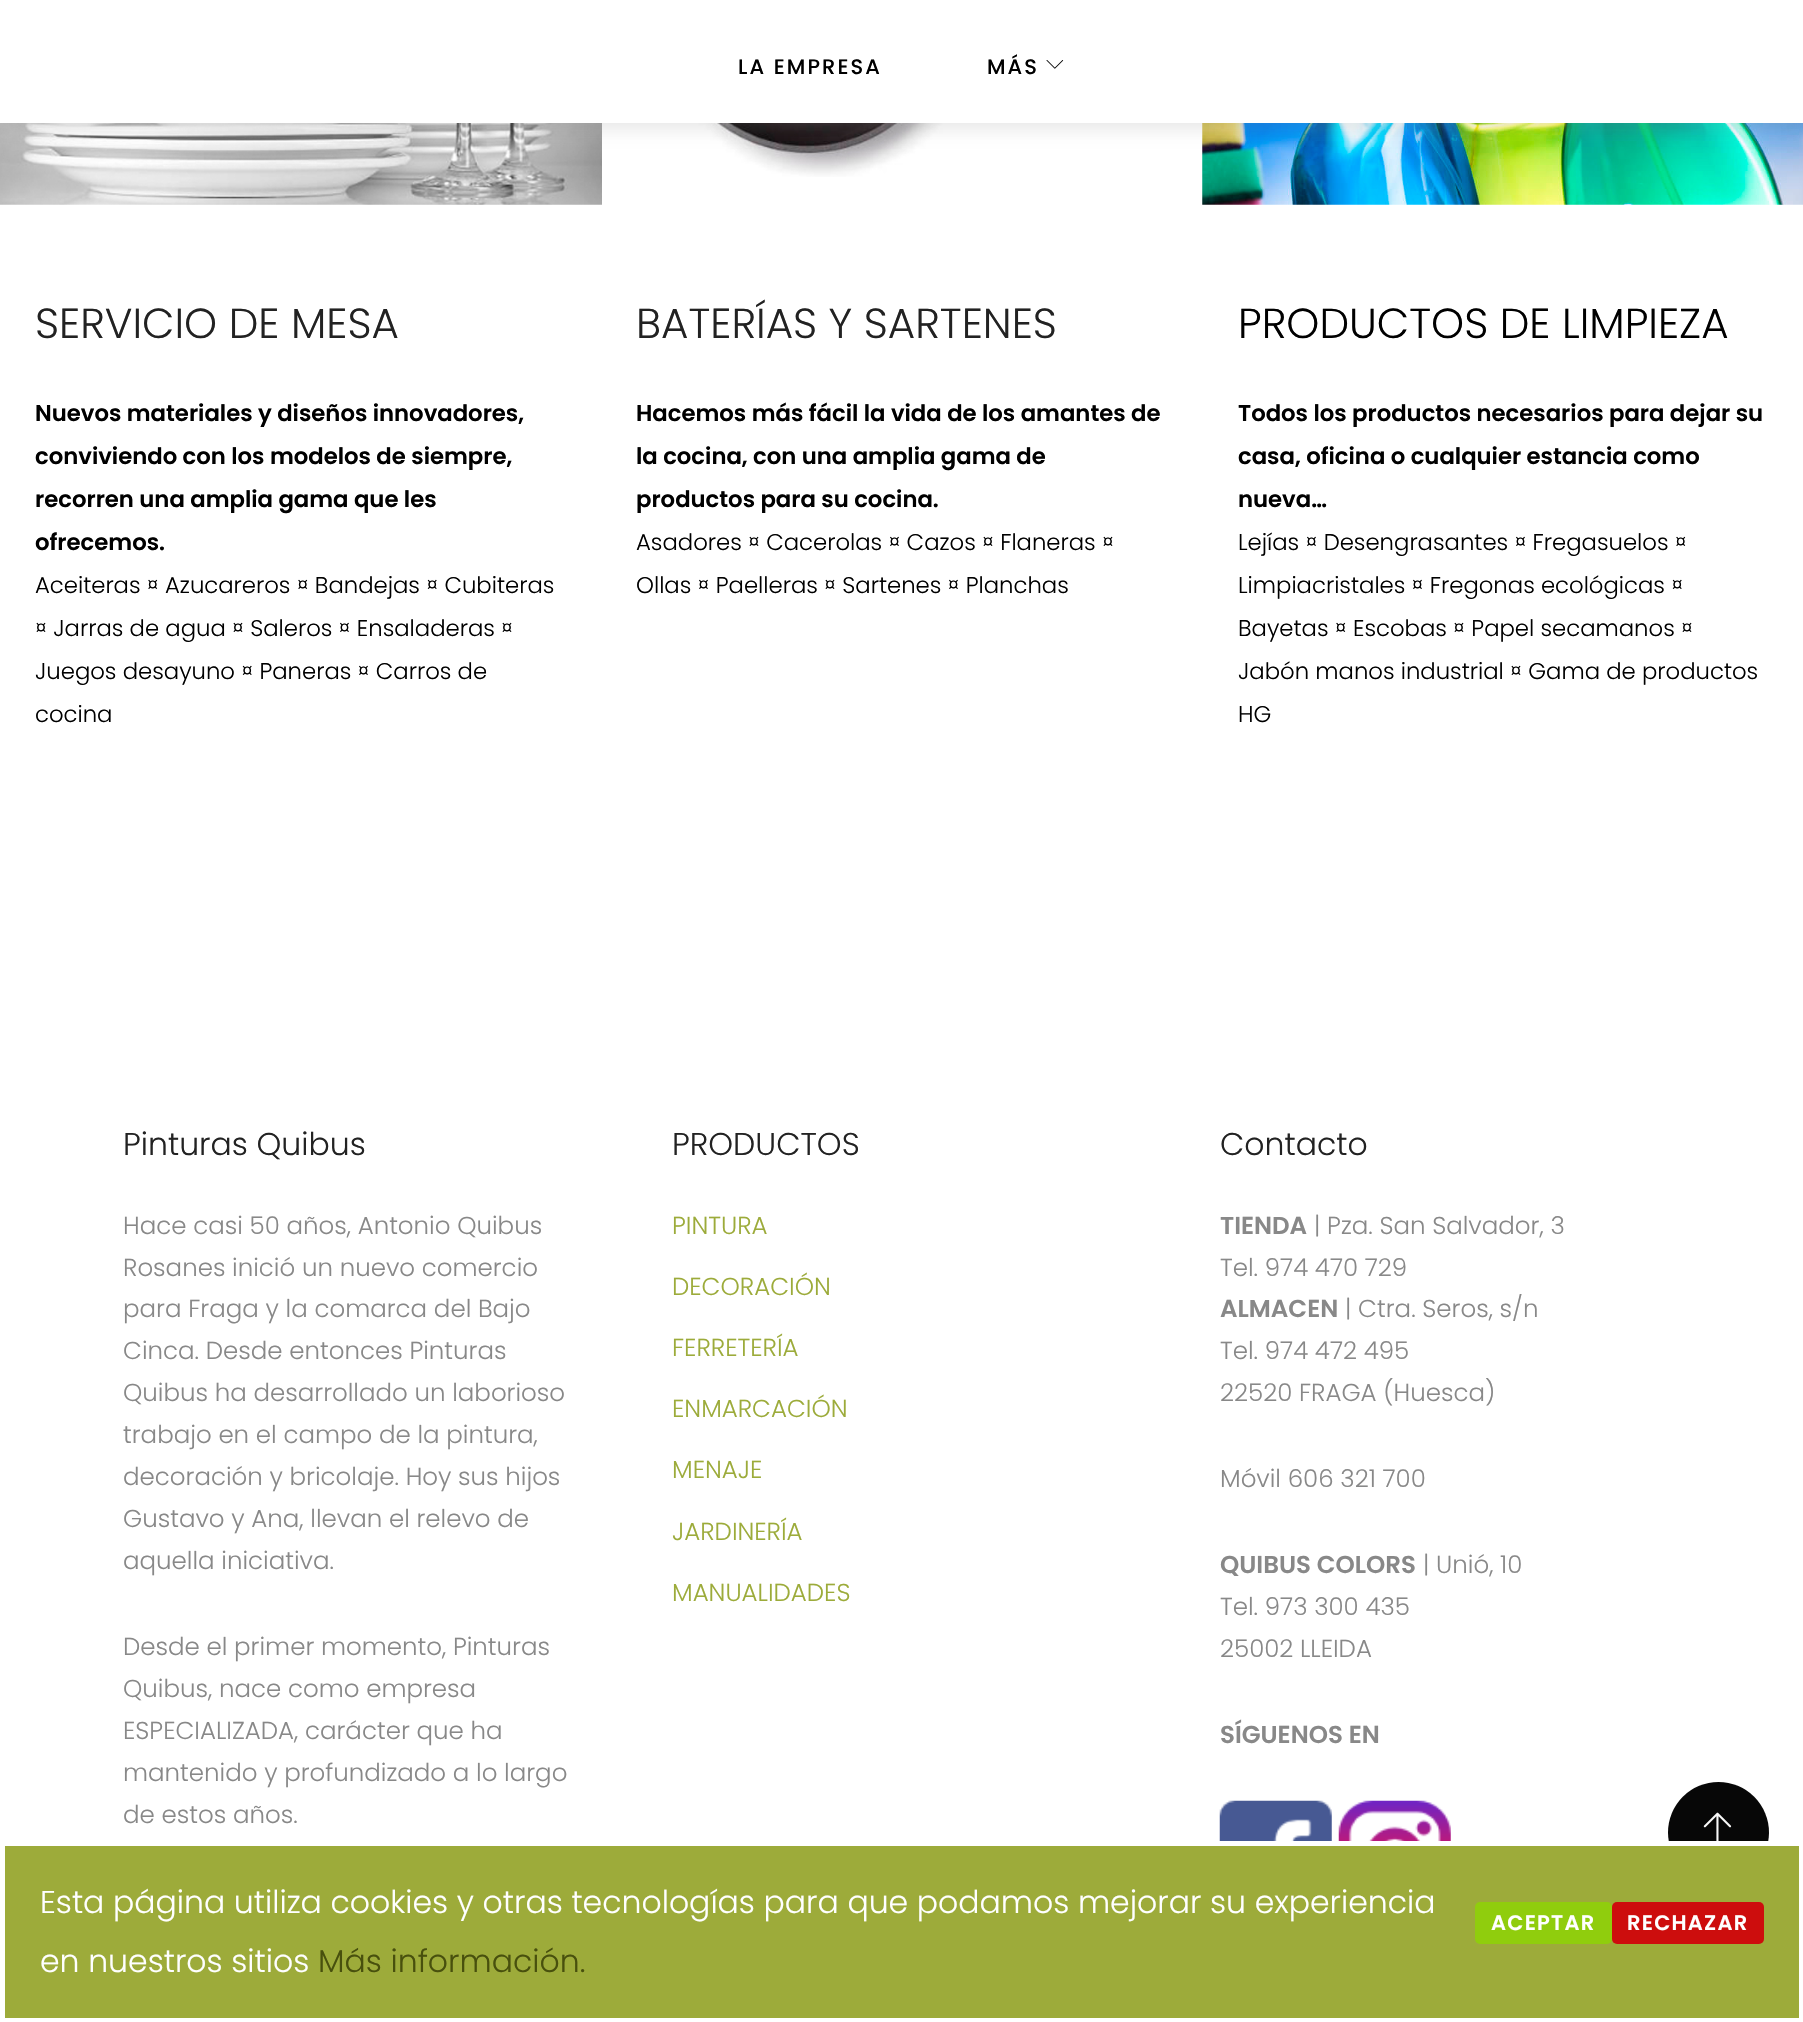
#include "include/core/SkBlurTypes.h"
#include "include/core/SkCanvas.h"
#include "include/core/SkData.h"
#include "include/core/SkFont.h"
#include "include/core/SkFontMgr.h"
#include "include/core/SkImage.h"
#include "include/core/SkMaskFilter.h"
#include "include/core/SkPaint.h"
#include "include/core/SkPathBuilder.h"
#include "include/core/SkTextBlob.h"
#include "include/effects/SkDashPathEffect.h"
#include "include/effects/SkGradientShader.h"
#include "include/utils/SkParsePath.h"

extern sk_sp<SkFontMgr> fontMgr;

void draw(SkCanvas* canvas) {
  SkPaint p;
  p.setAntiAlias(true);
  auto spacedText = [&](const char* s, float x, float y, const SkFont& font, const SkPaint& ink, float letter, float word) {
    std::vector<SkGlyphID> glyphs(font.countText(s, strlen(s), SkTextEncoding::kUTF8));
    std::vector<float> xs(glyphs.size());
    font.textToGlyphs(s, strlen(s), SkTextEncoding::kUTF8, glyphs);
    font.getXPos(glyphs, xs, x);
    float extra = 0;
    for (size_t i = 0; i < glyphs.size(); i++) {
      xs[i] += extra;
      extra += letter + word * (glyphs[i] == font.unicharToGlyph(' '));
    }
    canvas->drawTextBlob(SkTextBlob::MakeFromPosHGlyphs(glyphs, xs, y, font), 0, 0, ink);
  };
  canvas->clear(SK_ColorWHITE);
  canvas->drawImageRect(SkImages::DeferredFromEncodedData(SkData::MakeFromFileName("images/2.png")), SkRect::MakeLTRB(0, 123, 602, 205), SkSamplingOptions());
  canvas->drawImageRect(SkImages::DeferredFromEncodedData(SkData::MakeFromFileName("images/3.png")), SkRect::MakeLTRB(659, 123, 982, 177), SkSamplingOptions());
  canvas->drawImageRect(SkImages::DeferredFromEncodedData(SkData::MakeFromFileName("images/4.png")), SkRect::MakeLTRB(1202, 123, 1803, 205), SkSamplingOptions());
  p.setColor(SkColorSetARGB(66, 136, 136, 136));
  p.setMaskFilter(SkMaskFilter::MakeBlur(kNormal_SkBlurStyle, 10.5f));
  canvas->drawRect(SkRect::MakeLTRB(0, 4, 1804, 126), p);
  p.setMaskFilter(nullptr);
  p.setColor(SK_ColorWHITE);
  canvas->drawRect(SkRect::MakeLTRB(0, 0, 1803, 123), p);
  canvas->drawImageRect(SkImages::DeferredFromEncodedData(SkData::MakeFromFileName("images/1.png")), SkRect::MakeLTRB(1046, 60, 1064, 69), SkSamplingOptions());
  canvas->drawImageRect(SkImages::DeferredFromEncodedData(SkData::MakeFromFileName("images/5.png")), SkRect::MakeLTRB(1219, 1800, 1332, 1841), SkSamplingOptions());
  canvas->drawImageRect(SkImages::DeferredFromEncodedData(SkData::MakeFromFileName("images/6.png")), SkRect::MakeLTRB(1338, 1800, 1451, 1841), SkSamplingOptions());
  p.setColor(SkColorSetRGB(7, 7, 7));
  canvas->drawCircle(1718.5f, 1832.5f, 50.5f, p);
  canvas->drawImageRect(SkImages::DeferredFromEncodedData(SkData::MakeFromFileName("images/7.png")), SkRect::MakeLTRB(1703, 1812, 1732, 1841), SkSamplingOptions());
  p.setColor(SkColorSetRGB(157, 171, 58));
  canvas->drawRoundRect(SkRect::MakeLTRB(2.5f, 1843.5f, 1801.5f, 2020.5f), 2.5f, 2.5f, p);
  p.setStyle(SkPaint::kStroke_Style);
  p.setStrokeWidth(5);
  p.setColor(SK_ColorWHITE);
  canvas->drawRoundRect(SkRect::MakeLTRB(2.5f, 1843.5f, 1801.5f, 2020.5f), 2.5f, 2.5f, p);
  p.setStyle(SkPaint::kFill_Style);
  p.setColor(SkColorSetRGB(144, 205, 13));
  canvas->drawRoundRect(SkRect::MakeLTRB(1475, 1902, 1612, 1944), 5, 5, p);
  p.setColor(SkColorSetRGB(205, 13, 13));
  canvas->drawRoundRect(SkRect::MakeLTRB(1612, 1902, 1764, 1944), 5, 5, p);
  SkFont font1(fontMgr->matchFamilyStyle("Poppins", SkFontStyle(500, SkFontStyle::kNormal_Width, SkFontStyle::kUpright_Slant)), 21);
  font1.setSubpixel(true);
  p.setColor(SK_ColorBLACK);
  spacedText("LA EMPRESA", 738, 74, font1, p, 2.1f, 0);
  spacedText("MÁS", 987, 74, font1, p, 2.1f, 0);
  SkFont font2(fontMgr->matchFamilyStyle("Poppins", SkFontStyle(300, SkFontStyle::kNormal_Width, SkFontStyle::kUpright_Slant)), 42);
  font2.setSubpixel(true);
  p.setColor(SkColorSetRGB(34, 34, 34));
  canvas->drawString("SERVICIO DE MESA", 35, 338, font2, p);
  SkFont font3(fontMgr->matchFamilyStyle("Poppins", SkFontStyle(600, SkFontStyle::kNormal_Width, SkFontStyle::kUpright_Slant)), 22.75f);
  font3.setSubpixel(true);
  p.setColor(SK_ColorBLACK);
  canvas->drawString("Nuevos materiales y diseños innovadores,", 35, 421, font3, p);
  canvas->drawString("conviviendo con los modelos de siempre,", 35, 464, font3, p);
  canvas->drawString("recorren una amplia gama que les", 35, 507, font3, p);
  canvas->drawString("ofrecemos.", 35, 550, font3, p);
  SkFont font4(fontMgr->matchFamilyStyle("Poppins", SkFontStyle(300, SkFontStyle::kNormal_Width, SkFontStyle::kUpright_Slant)), 22.75f);
  font4.setSubpixel(true);
  canvas->drawString("Aceiteras ¤ Azucareros ¤ Bandejas ¤ Cubiteras", 35, 593, font4, p);
  canvas->drawString("¤ Jarras de agua ¤ Saleros ¤ Ensaladeras ¤", 35, 636, font4, p);
  canvas->drawString("Juegos desayuno ¤ Paneras ¤ Carros de", 35, 679, font4, p);
  canvas->drawString("cocina", 35, 722, font4, p);
  p.setColor(SkColorSetRGB(34, 34, 34));
  canvas->drawString("BATERÍAS Y SARTENES", 636, 338, font2, p);
  p.setColor(SK_ColorBLACK);
  canvas->drawString("Hacemos más fácil la vida de los amantes de", 636, 421, font3, p);
  canvas->drawString("la cocina, con una amplia gama de", 636, 464, font3, p);
  canvas->drawString("productos para su cocina.", 636, 507, font3, p);
  canvas->drawString("Asadores ¤ Cacerolas ¤ Cazos ¤ Flaneras ¤", 636, 550, font4, p);
  canvas->drawString("Ollas ¤ Paelleras ¤ Sartenes ¤ Planchas", 636, 593, font4, p);
  canvas->drawString("PRODUCTOS DE LIMPIEZA", 1238, 338, font2, p);
  canvas->drawString("Todos los productos necesarios para dejar su", 1238, 421, font3, p);
  canvas->drawString("casa, oficina o cualquier estancia como", 1238, 464, font3, p);
  canvas->drawString("nueva…", 1238, 507, font3, p);
  canvas->drawString("Lejías ¤ Desengrasantes ¤ Fregasuelos ¤", 1238, 550, font4, p);
  canvas->drawString("Limpiacristales ¤ Fregonas ecológicas ¤", 1238, 593, font4, p);
  canvas->drawString("Bayetas ¤ Escobas ¤ Papel secamanos ¤", 1238, 636, font4, p);
  canvas->drawString("Jabón manos industrial ¤ Gama de productos", 1238, 679, font4, p);
  canvas->drawString("HG", 1238, 722, font4, p);
  SkFont font5(fontMgr->matchFamilyStyle("Poppins", SkFontStyle(300, SkFontStyle::kNormal_Width, SkFontStyle::kUpright_Slant)), 31.5f);
  font5.setSubpixel(true);
  p.setColor(SkColorSetRGB(34, 34, 34));
  canvas->drawString("Pinturas Quibus", 123, 1155, font5, p);
  SkFont font6(fontMgr->matchFamilyStyle("Poppins", SkFontStyle(300, SkFontStyle::kNormal_Width, SkFontStyle::kUpright_Slant)), 24.5f);
  font6.setSubpixel(true);
  p.setColor(SkColorSetRGB(136, 136, 136));
  canvas->drawString("Hace casi 50 años, Antonio Quibus", 123, 1234, font6, p);
  canvas->drawString("Rosanes inició un nuevo comercio", 123, 1276, font6, p);
  canvas->drawString("para Fraga y la comarca del Bajo", 123, 1317, font6, p);
  canvas->drawString("Cinca. Desde entonces Pinturas", 123, 1359, font6, p);
  canvas->drawString("Quibus ha desarrollado un laborioso", 123, 1401, font6, p);
  canvas->drawString("trabajo en el campo de la pintura,", 123, 1443, font6, p);
  canvas->drawString("decoración y bricolaje. Hoy sus hijos", 123, 1485, font6, p);
  canvas->drawString("Gustavo y Ana, llevan el relevo de", 123, 1527, font6, p);
  canvas->drawString("aquella iniciativa.", 123, 1569, font6, p);
  canvas->drawString("Desde el primer momento, Pinturas", 123, 1655, font6, p);
  canvas->drawString("Quibus, nace como empresa", 123, 1697, font6, p);
  canvas->drawString("ESPECIALIZADA, carácter que ha", 123, 1739, font6, p);
  canvas->drawString("mantenido y profundizado a lo largo", 123, 1781, font6, p);
  canvas->drawString("de estos años.", 123, 1823, font6, p);
  p.setColor(SkColorSetRGB(34, 34, 34));
  canvas->drawString("PRODUCTOS", 672, 1155, font5, p);
  p.setColor(SkColorSetRGB(156, 171, 58));
  canvas->drawString("PINTURA", 672, 1234, font6, p);
  canvas->drawString("DECORACIÓN", 672, 1295, font6, p);
  canvas->drawString("FERRETERÍA", 672, 1356, font6, p);
  canvas->drawString("ENMARCACIÓN", 672, 1417, font6, p);
  canvas->drawString("MENAJE", 672, 1478, font6, p);
  canvas->drawString("JARDINERÍA", 672, 1540, font6, p);
  canvas->drawString("MANUALIDADES", 672, 1601, font6, p);
  p.setColor(SkColorSetRGB(34, 34, 34));
  canvas->drawString("Contacto", 1220, 1155, font5, p);
  SkFont font7(fontMgr->matchFamilyStyle("Poppins", SkFontStyle(600, SkFontStyle::kNormal_Width, SkFontStyle::kUpright_Slant)), 24.5f);
  font7.setSubpixel(true);
  p.setColor(SkColorSetRGB(136, 136, 136));
  canvas->drawString("TIENDA", 1220, 1234, font7, p);
  canvas->drawString("| Pza. San Salvador, 3", 1314, 1234, font6, p);
  canvas->drawString("Tel. 974 470 729", 1220, 1276, font6, p);
  canvas->drawString("ALMACEN", 1220, 1317, font7, p);
  canvas->drawString("| Ctra. Seros, s/n", 1345, 1317, font6, p);
  canvas->drawString("Tel. 974 472 495", 1220, 1359, font6, p);
  canvas->drawString("22520 FRAGA (Huesca)", 1220, 1401, font6, p);
  canvas->drawString("Móvil 606 321 700", 1220, 1487, font6, p);
  canvas->drawString("QUIBUS COLORS", 1220, 1573, font7, p);
  canvas->drawString("| Unió, 10", 1423, 1573, font6, p);
  canvas->drawString("Tel. 973 300 435", 1220, 1615, font6, p);
  canvas->drawString("25002 LLEIDA", 1220, 1657, font6, p);
  canvas->drawString("SÍGUENOS EN", 1220, 1743, font7, p);
  p.setColor(SK_ColorWHITE);
  canvas->drawString("Esta página utiliza cookies y otras tecnologías para que podamos mejorar su experiencia", 40, 1913, font5, p);
  canvas->drawString("en nuestros sitios", 40, 1972, font5, p);
  p.setColor(SkColorSetRGB(72, 80, 13));
  canvas->drawString("Más información.", 318, 1972, font5, p);
  SkFont font8(fontMgr->matchFamilyStyle("Poppins", SkFontStyle(600, SkFontStyle::kNormal_Width, SkFontStyle::kUpright_Slant)), 21);
  font8.setSubpixel(true);
  p.setColor(SK_ColorWHITE);
  spacedText("ACEPTAR", 1491, 1930, font8, p, 1.25f, 0);
  spacedText("RECHAZAR", 1627, 1930, font8, p, 1.25f, 0);
}
